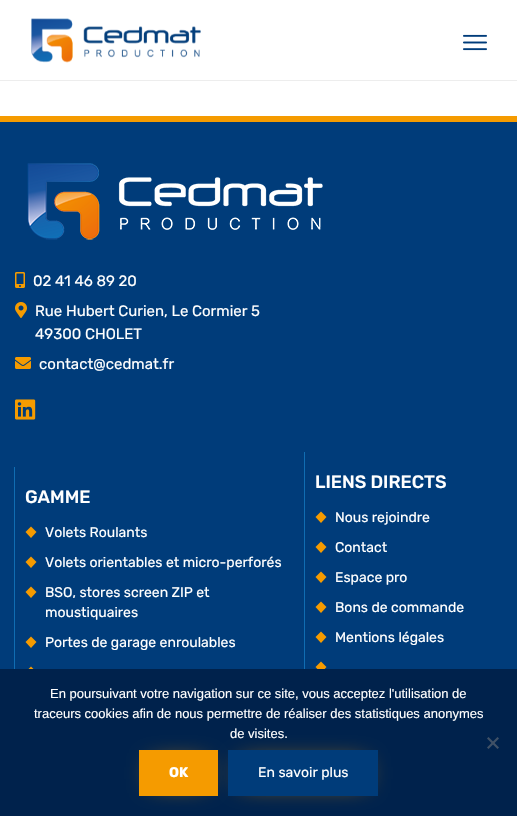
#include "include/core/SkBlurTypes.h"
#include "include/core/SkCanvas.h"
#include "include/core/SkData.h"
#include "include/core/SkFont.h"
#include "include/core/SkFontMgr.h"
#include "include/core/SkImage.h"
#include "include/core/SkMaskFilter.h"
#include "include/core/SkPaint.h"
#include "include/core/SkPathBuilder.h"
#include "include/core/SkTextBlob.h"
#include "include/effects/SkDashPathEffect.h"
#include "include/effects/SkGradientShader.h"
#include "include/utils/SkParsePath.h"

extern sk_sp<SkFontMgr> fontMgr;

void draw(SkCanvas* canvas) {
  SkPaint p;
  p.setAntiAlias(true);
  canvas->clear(SK_ColorWHITE);
  p.setColor(SkColorSetRGB(237, 237, 237));
  canvas->drawRect(SkRect::MakeLTRB(0, 80, 517, 81), p);
  canvas->drawImageRect(SkImages::DeferredFromEncodedData(SkData::MakeFromFileName("images/1.png")), SkRect::MakeLTRB(31, 18, 201, 63), SkSamplingOptions());
  canvas->drawImageRect(SkImages::DeferredFromEncodedData(SkData::MakeFromFileName("images/2.png")), SkRect::MakeLTRB(463, 34, 487, 51), SkSamplingOptions());
  p.setColor(SkColorSetRGB(245, 155, 0));
  canvas->drawRect(SkRect::MakeLTRB(0, 116, 517, 122), p);
  p.setColor(SkColorSetRGB(0, 60, 122));
  canvas->drawRect(SkRect::MakeLTRB(0, 122, 517, 669), p);
  canvas->drawImageRect(SkImages::DeferredFromEncodedData(SkData::MakeFromFileName("images/3.png")), SkRect::MakeLTRB(27, 163, 323, 240), SkSamplingOptions());
  canvas->drawImageRect(SkImages::DeferredFromEncodedData(SkData::MakeFromFileName("images/4.png")), SkRect::MakeLTRB(15, 272, 25, 288), SkSamplingOptions());
  canvas->drawImageRect(SkImages::DeferredFromEncodedData(SkData::MakeFromFileName("images/5.png")), SkRect::MakeLTRB(15, 302, 27, 318), SkSamplingOptions());
  canvas->drawImageRect(SkImages::DeferredFromEncodedData(SkData::MakeFromFileName("images/6.png")), SkRect::MakeLTRB(15, 357, 31, 369), SkSamplingOptions());
  canvas->drawImageRect(SkImages::DeferredFromEncodedData(SkData::MakeFromFileName("images/7.png")), SkRect::MakeLTRB(15, 399, 36, 420), SkSamplingOptions());
  p.setColor(SkColorSetRGB(16, 109, 178));
  canvas->drawRect(SkRect::MakeLTRB(14, 467, 15, 669), p);
  p.setColor(SkColorSetRGB(245, 155, 0));
  canvas->drawPath(SkPathBuilder().moveTo(31, 526.5f).lineTo(36.5f, 532).lineTo(31, 538).lineTo(25.5f, 532).close().detach(), p);
  canvas->drawPath(SkPathBuilder().moveTo(31, 556.5f).lineTo(36.5f, 562).lineTo(31, 568).lineTo(25.5f, 562).close().detach(), p);
  canvas->drawPath(SkPathBuilder().moveTo(31, 586.5f).lineTo(36.5f, 592).lineTo(31, 598).lineTo(25.5f, 592).close().detach(), p);
  canvas->drawPath(SkPathBuilder().moveTo(31, 636.5f).lineTo(36.5f, 642).lineTo(31, 648).lineTo(25.5f, 642).close().moveTo(31, 666.5f).lineTo(36.5f, 672).lineTo(31, 678).lineTo(25.5f, 672).close().detach(), p);
  p.setColor(SkColorSetRGB(16, 109, 178));
  canvas->drawRect(SkRect::MakeLTRB(304, 452, 305, 669), p);
  p.setColor(SkColorSetRGB(245, 155, 0));
  canvas->drawPath(SkPathBuilder().moveTo(321, 511.5f).lineTo(326.5f, 517).lineTo(321, 523).lineTo(315.5f, 517).close().detach(), p);
  canvas->drawPath(SkPathBuilder().moveTo(321, 541.5f).lineTo(326.5f, 547).lineTo(321, 553).lineTo(315.5f, 547).close().detach(), p);
  canvas->drawPath(SkPathBuilder().moveTo(321, 571.5f).lineTo(326.5f, 577).lineTo(321, 583).lineTo(315.5f, 577).close().detach(), p);
  canvas->drawPath(SkPathBuilder().moveTo(321, 601.5f).lineTo(326.5f, 607).lineTo(321, 613).lineTo(315.5f, 607).close().detach(), p);
  canvas->drawPath(SkPathBuilder().moveTo(321, 631.5f).lineTo(326.5f, 637).lineTo(321, 643).lineTo(315.5f, 637).close().moveTo(321, 661.5f).lineTo(326.5f, 667).lineTo(321, 673).lineTo(315.5f, 667).close().detach(), p);
  p.setColor(SkColorSetRGB(0, 34, 76));
  canvas->drawRect(SkRect::MakeLTRB(0, 669, 517, 816), p);
  p.setColor(SkColorSetRGB(64, 81, 102));
  canvas->drawPath(SkPathBuilder().moveTo(497.5f, 737).lineTo(499, 738.5f).lineTo(488.5f, 749).lineTo(487, 747.5f).close().detach(), p);
  canvas->drawPath(SkPathBuilder().moveTo(487, 738.5f).lineTo(488.5f, 737).lineTo(499, 747.5f).lineTo(497.5f, 749).close().detach(), p);
  p.setColor(SkColorSetRGB(245, 155, 0));
  p.setMaskFilter(SkMaskFilter::MakeBlur(kNormal_SkBlurStyle, 12.5f));
  canvas->drawRect(SkRect::MakeLTRB(153, 764, 204, 782), p);
  p.setMaskFilter(nullptr);
  canvas->drawRect(SkRect::MakeLTRB(139, 750, 218, 796), p);
  p.setMaskFilter(SkMaskFilter::MakeBlur(kNormal_SkBlurStyle, 12.5f));
  canvas->drawRect(SkRect::MakeLTRB(242, 764, 364, 782), p);
  p.setMaskFilter(nullptr);
  p.setColor(SkColorSetRGB(0, 60, 122));
  canvas->drawRect(SkRect::MakeLTRB(228, 750, 378, 796), p);
  SkFont font1(fontMgr->matchFamilyStyle("Rubik", SkFontStyle::Normal()), 15);
  font1.setSubpixel(true);
  p.setColor(SK_ColorWHITE);
  canvas->drawString("02 41 46 89 20", 33, 286, font1, p);
  canvas->drawString("Rue Hubert Curien, Le Cormier 5", 35, 316, font1, p);
  canvas->drawString("49300 CHOLET", 35, 339, font1, p);
  canvas->drawString("contact@cedmat.fr", 39, 369, font1, p);
  SkFont font2(fontMgr->matchFamilyStyle("Rubik", SkFontStyle(500, SkFontStyle::kNormal_Width, SkFontStyle::kUpright_Slant)), 18);
  font2.setSubpixel(true);
  canvas->drawString("GAMME", 25, 503, font2, p);
  SkFont font3(fontMgr->matchFamilyStyle("Rubik", SkFontStyle::Normal()), 14);
  font3.setSubpixel(true);
  canvas->drawString("Volets Roulants", 45, 537, font3, p);
  canvas->drawString("Volets orientables et micro-perforés", 45, 567, font3, p);
  canvas->drawString("BSO, stores screen ZIP et", 45, 597, font3, p);
  canvas->drawString("moustiquaires", 45, 617, font3, p);
  canvas->drawString("Portes de garage enroulables", 45, 647, font3, p);
  canvas->drawString("LIENS DIRECTS", 315, 488, font2, p);
  canvas->drawString("Nous rejoindre", 335, 522, font3, p);
  canvas->drawString("Contact", 335, 552, font3, p);
  canvas->drawString("Espace pro", 335, 582, font3, p);
  canvas->drawString("Bons de commande", 335, 612, font3, p);
  canvas->drawString("Mentions légales", 335, 642, font3, p);
  SkFont font4(fontMgr->matchFamilyStyle("Liberation Sans", SkFontStyle::Normal()), 13);
  font4.setSubpixel(true);
  canvas->drawString("En poursuivant votre navigation sur ce site, vous acceptez l'utilisation de", 50, 698, font4, p);
  canvas->drawString("traceurs cookies afin de nous permettre de réaliser des statistiques anonymes", 34, 718, font4, p);
  canvas->drawString("de visites.", 230, 738, font4, p);
  SkFont font5(fontMgr->matchFamilyStyle("Rubik", SkFontStyle::Bold()), 14);
  font5.setSubpixel(true);
  canvas->drawString("OK", 169, 777, font5, p);
  canvas->drawString("En savoir plus", 258, 777, font3, p);
}
